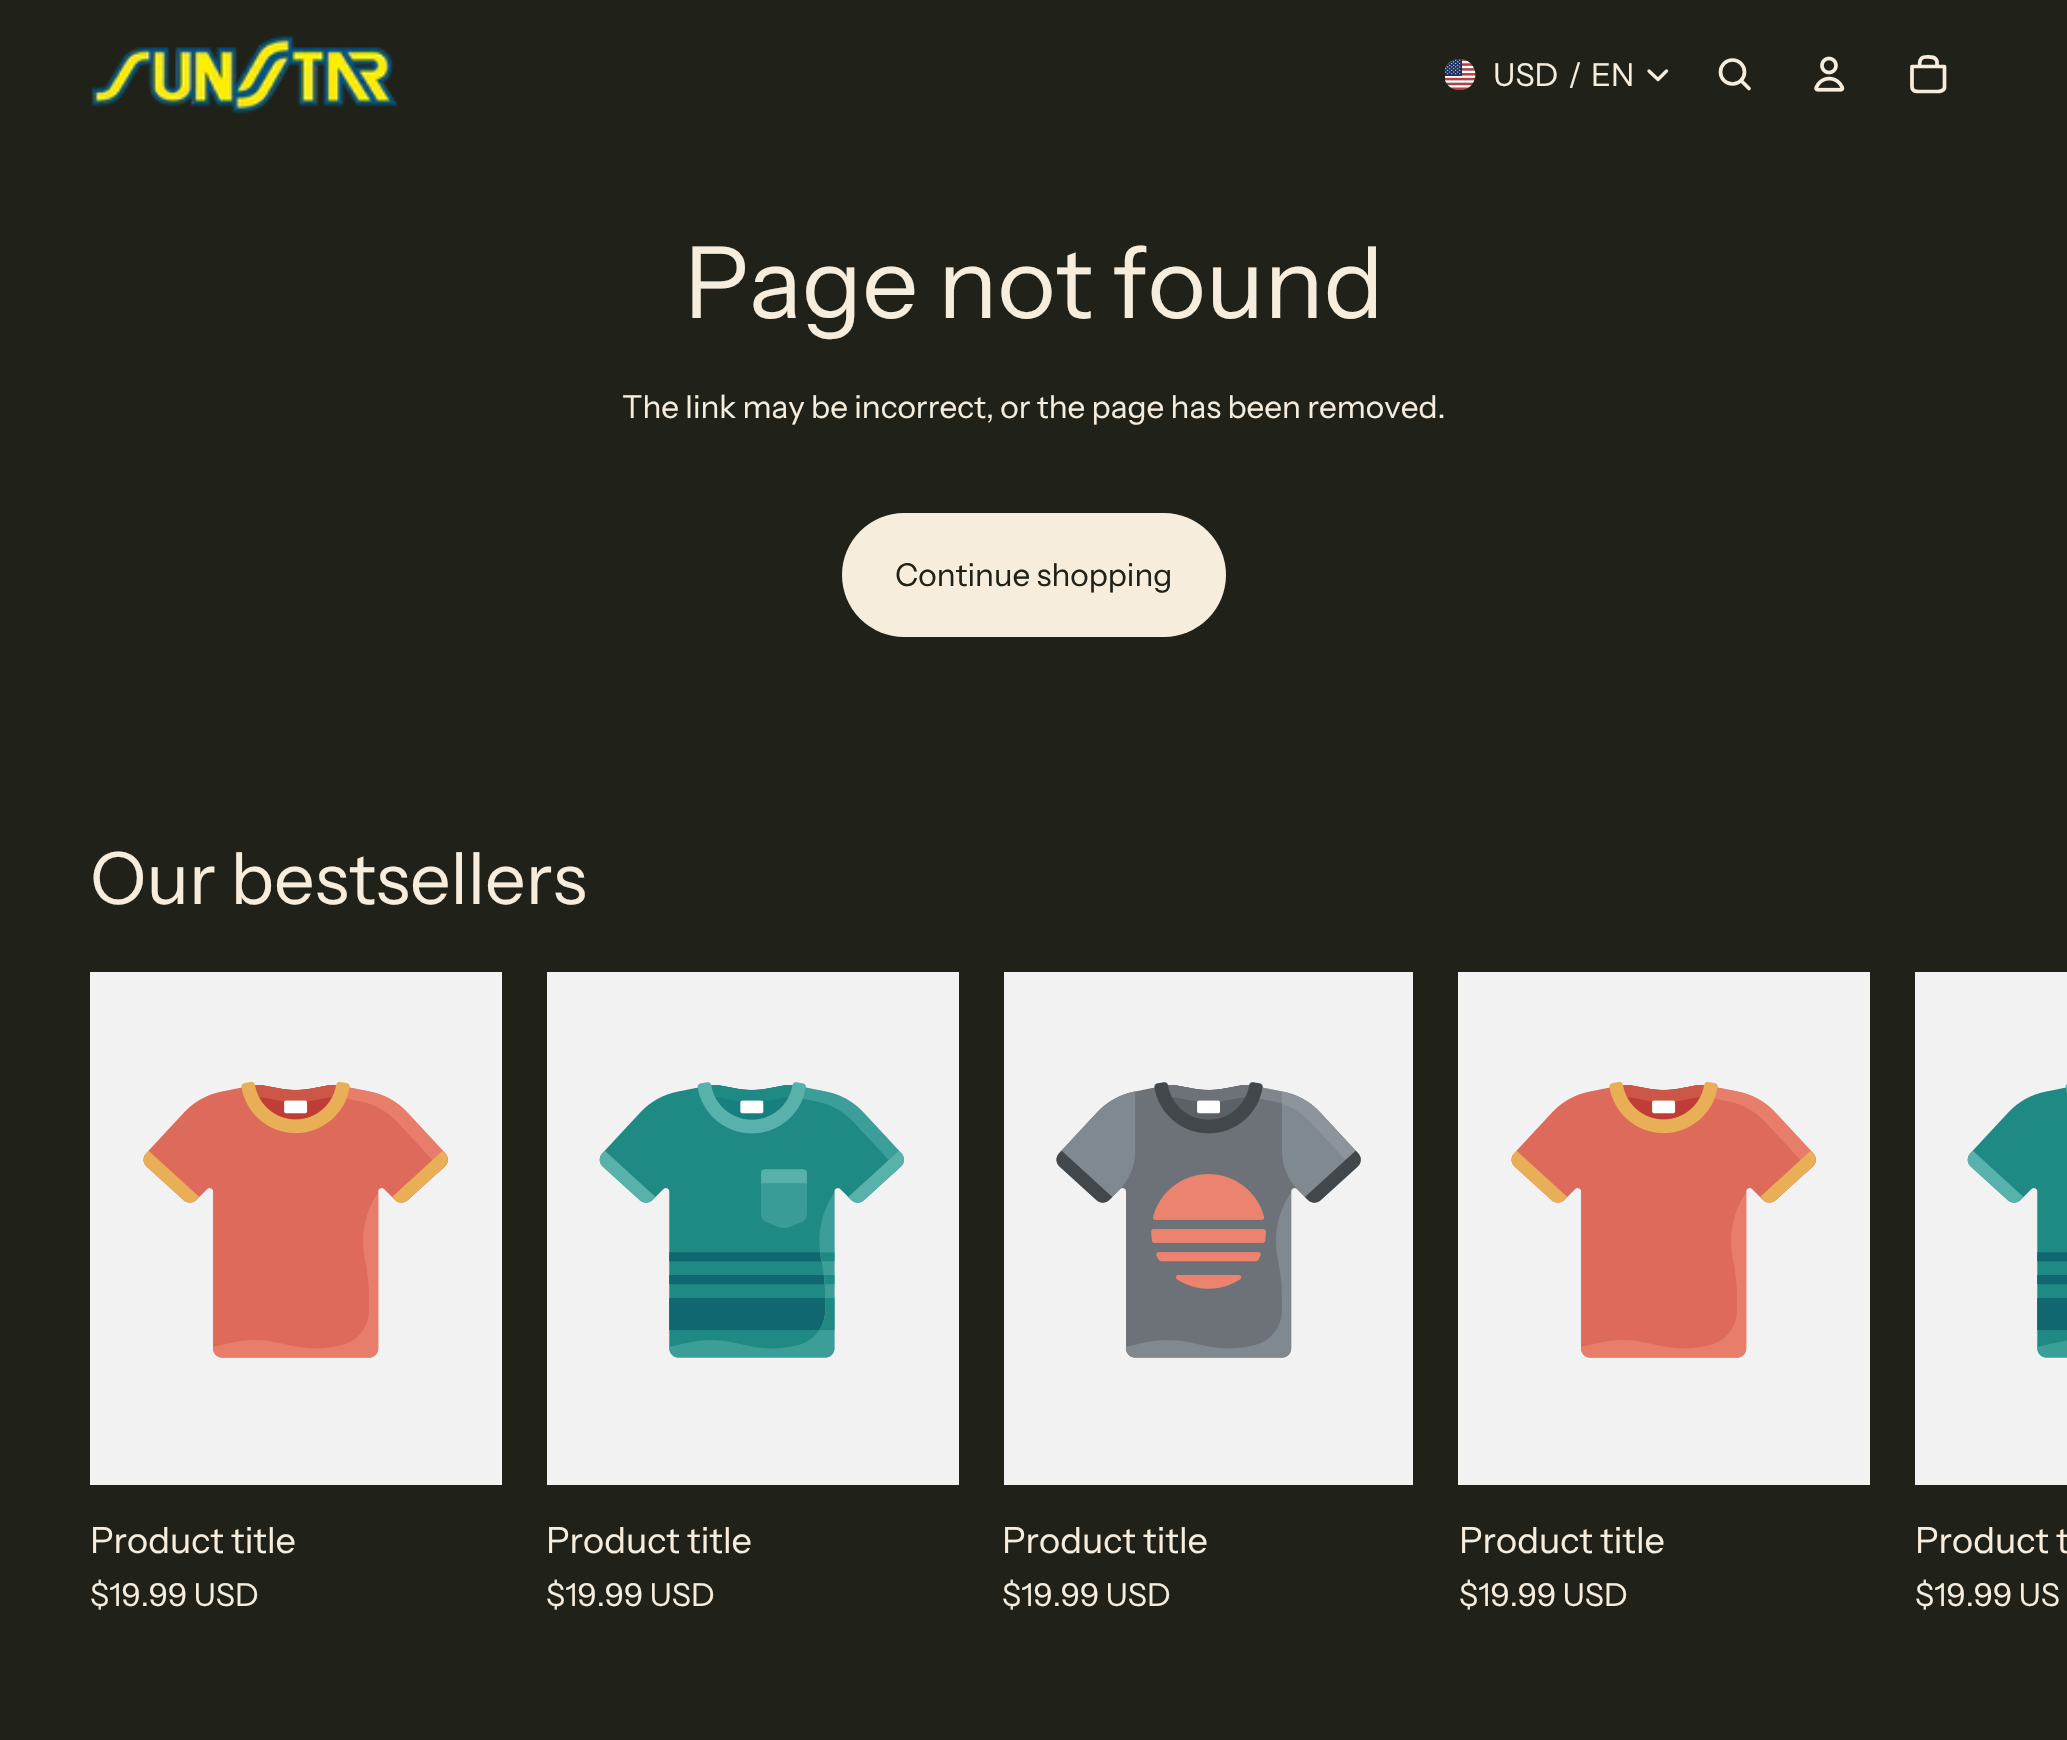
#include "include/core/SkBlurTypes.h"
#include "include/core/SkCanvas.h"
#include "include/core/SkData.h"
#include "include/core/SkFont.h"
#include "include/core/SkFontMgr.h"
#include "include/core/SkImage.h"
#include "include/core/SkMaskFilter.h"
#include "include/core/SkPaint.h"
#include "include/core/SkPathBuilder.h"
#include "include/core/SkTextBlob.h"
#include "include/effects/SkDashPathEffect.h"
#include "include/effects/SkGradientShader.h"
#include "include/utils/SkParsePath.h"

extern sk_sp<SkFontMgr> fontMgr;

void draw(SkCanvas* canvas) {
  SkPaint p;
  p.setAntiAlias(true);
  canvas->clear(SkColorSetRGB(32, 34, 25));
  canvas->drawImageRect(SkImages::DeferredFromEncodedData(SkData::MakeFromFileName("images/1.png")), SkRect::MakeLTRB(91, 35, 399, 114), SkSamplingOptions());
  canvas->drawImageRect(SkImages::DeferredFromEncodedData(SkData::MakeFromFileName("images/2.png")), SkRect::MakeLTRB(1445, 59, 1476, 90), SkSamplingOptions());
  p.setStyle(SkPaint::kStroke_Style);
  p.setStrokeWidth(3.3f);
  p.setStrokeCap(SkPaint::kRound_Cap);
  p.setStrokeJoin(SkPaint::kRound_Join);
  p.setColor(SkColorSetRGB(246, 237, 221));
  canvas->drawPath(SkPathBuilder().moveTo(1666.5f, 71).lineTo(1658, 79.5f).lineTo(1649, 71).detach(), p);
  p.setStrokeWidth(3.7f);
  p.setStrokeCap(SkPaint::kButt_Cap);
  p.setStrokeJoin(SkPaint::kMiter_Join);
  canvas->drawCircle(1732.5f, 72, 12, p);
  p.setStrokeCap(SkPaint::kRound_Cap);
  p.setStrokeJoin(SkPaint::kRound_Join);
  canvas->drawPath(SkPathBuilder().moveTo(1741, 80.5f).lineTo(1749, 88.5f).detach(), p);
  canvas->drawImageRect(SkImages::DeferredFromEncodedData(SkData::MakeFromFileName("images/3.png")), SkRect::MakeLTRB(1814, 56, 1845, 92), SkSamplingOptions());
  canvas->drawPath(SkPathBuilder().moveTo(1912, 66.5f).lineTo(1944.5f, 66.5f).lineTo(1944.5f, 88).cubicTo(1943, 92, 1939, 91.5f, 1935.5f, 91.5f).lineTo(1921, 91.5f).cubicTo(1917, 91.5f, 1912, 92, 1912, 86.5f).close().moveTo(1925.5f, 57).cubicTo(1929.5f, 57, 1935.5f, 56, 1937, 61.5f).lineTo(1937, 66.5f).lineTo(1919.5f, 66.5f).cubicTo(1919.5f, 62.5f, 1919.5f, 57, 1925.5f, 57).detach(), p);
  p.setStyle(SkPaint::kFill_Style);
  canvas->drawRoundRect(SkRect::MakeLTRB(842, 513, 1226, 637), 62, 62, p);
  canvas->drawImageRect(SkImages::DeferredFromEncodedData(SkData::MakeFromFileName("images/4.png")), SkRect::MakeLTRB(90, 972, 502, 1485), SkSamplingOptions());
  canvas->drawImageRect(SkImages::DeferredFromEncodedData(SkData::MakeFromFileName("images/5.png")), SkRect::MakeLTRB(547, 972, 959, 1485), SkSamplingOptions());
  canvas->drawImageRect(SkImages::DeferredFromEncodedData(SkData::MakeFromFileName("images/6.png")), SkRect::MakeLTRB(1004, 972, 1413, 1485), SkSamplingOptions());
  canvas->drawImageRect(SkImages::DeferredFromEncodedData(SkData::MakeFromFileName("images/4.png")), SkRect::MakeLTRB(1458, 972, 1870, 1485), SkSamplingOptions());
  canvas->drawImageRect(SkImages::DeferredFromEncodedData(SkData::MakeFromFileName("images/7.png")), SkRect::MakeLTRB(1915, 972, 2067, 1485), SkSamplingOptions());
  SkFont font1(fontMgr->matchFamilyStyle("Instrument Sans", SkFontStyle::Normal()), 31.5f);
  font1.setSubpixel(true);
  canvas->drawString("USD", 1493, 86, font1, p);
  canvas->drawString("/", 1568, 86, font1, p);
  canvas->drawString("EN", 1591, 86, font1, p);
  SkFont font2(fontMgr->matchFamilyStyle("Instrument Sans", SkFontStyle::Normal()), 99.25f);
  font2.setSubpixel(true);
  canvas->drawString("Page not found", 684, 318, font2, p);
  canvas->drawString("The link may be incorrect, or the page has been removed.", 622, 418, font1, p);
  p.setColor(SkColorSetRGB(32, 34, 25));
  canvas->drawString("Continue shopping", 895, 586, font1, p);
  SkFont font3(fontMgr->matchFamilyStyle("Instrument Sans", SkFontStyle::Normal()), 72);
  font3.setSubpixel(true);
  p.setColor(SkColorSetRGB(246, 237, 221));
  canvas->drawString("Our bestsellers", 90, 904, font3, p);
  SkFont font4(fontMgr->matchFamilyStyle("Instrument Sans", SkFontStyle::Normal()), 36);
  font4.setSubpixel(true);
  canvas->drawString("Product title", 90, 1553, font4, p);
  canvas->drawString("$19.99 USD", 90, 1606, font1, p);
  canvas->drawString("Product title", 546, 1553, font4, p);
  canvas->drawString("$19.99 USD", 546, 1606, font1, p);
  canvas->drawString("Product title", 1002, 1553, font4, p);
  canvas->drawString("$19.99 USD", 1002, 1606, font1, p);
  canvas->drawString("Product title", 1459, 1553, font4, p);
  canvas->drawString("$19.99 USD", 1459, 1606, font1, p);
  canvas->drawString("Product t", 1915, 1553, font4, p);
  canvas->drawString("$19.99 US", 1915, 1606, font1, p);
}
